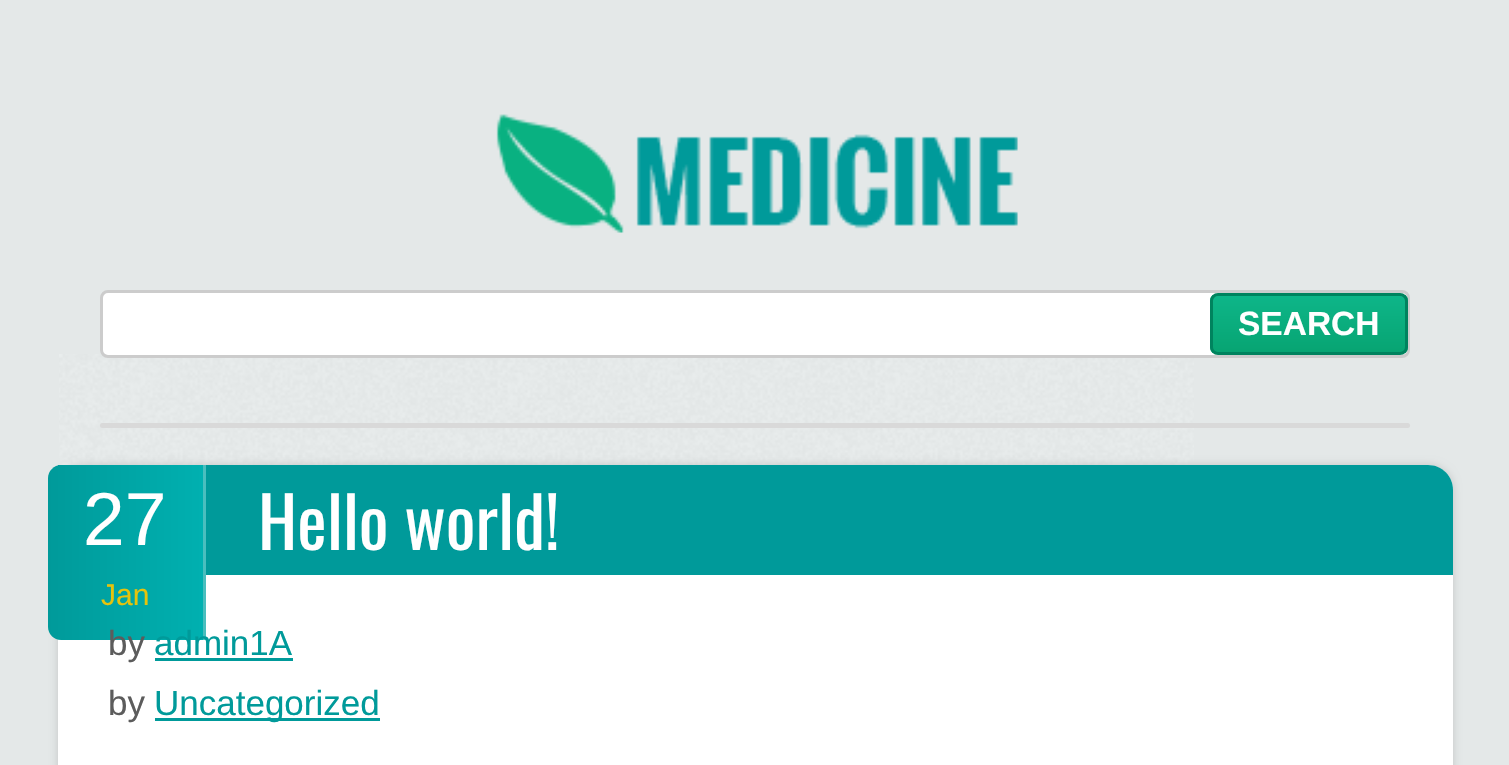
#include "include/core/SkBlurTypes.h"
#include "include/core/SkCanvas.h"
#include "include/core/SkData.h"
#include "include/core/SkFont.h"
#include "include/core/SkFontMgr.h"
#include "include/core/SkImage.h"
#include "include/core/SkMaskFilter.h"
#include "include/core/SkPaint.h"
#include "include/core/SkPathBuilder.h"
#include "include/core/SkTextBlob.h"
#include "include/effects/SkDashPathEffect.h"
#include "include/effects/SkGradientShader.h"
#include "include/utils/SkParsePath.h"

extern sk_sp<SkFontMgr> fontMgr;

void draw(SkCanvas* canvas) {
  SkPaint p;
  p.setAntiAlias(true);
  canvas->clear(SkColorSetRGB(228, 232, 232));
  canvas->drawImageRect(SkImages::DeferredFromEncodedData(SkData::MakeFromFileName("images/1.png")), SkRect::MakeLTRB(59, 354, 1194, 465), SkSamplingOptions());
  canvas->drawImageRect(SkImages::DeferredFromEncodedData(SkData::MakeFromFileName("images/2.png")), SkRect::MakeLTRB(496, 114, 1018, 233), SkSamplingOptions());
  p.setColor(SK_ColorWHITE);
  canvas->drawRoundRect(SkRect::MakeLTRB(101.5f, 291.5f, 1408.5f, 356.5f), 6.5f, 6.5f, p);
  p.setStyle(SkPaint::kStroke_Style);
  p.setStrokeWidth(3);
  p.setColor(SkColorSetRGB(204, 204, 204));
  canvas->drawRoundRect(SkRect::MakeLTRB(101.5f, 291.5f, 1408.5f, 356.5f), 6.5f, 6.5f, p);
  canvas->save();
  canvas->clipPath(SkPathBuilder().moveTo(1218, 293).lineTo(1400, 293).cubicTo(1404.5f, 293, 1408, 296.5f, 1408, 301).lineTo(1408, 347).cubicTo(1408, 351.5f, 1404.5f, 355, 1400, 355).lineTo(1218, 355).cubicTo(1213.5f, 355, 1210, 351.5f, 1210, 347).lineTo(1210, 301).cubicTo(1210, 296.5f, 1213.5f, 293, 1218, 293).close().detach(), true);
  p.setStyle(SkPaint::kFill_Style);
  {
    const SkColor colors[] = {SkColorSetRGB(14, 182, 137), SkColorSetRGB(7, 164, 114)};
    const float stops[] = {0, 1};
    const SkPoint ends[] = {{1309, 295}, {1309, 353}};
    p.setShader(SkGradientShader::MakeLinear(ends, colors, stops, 2, SkTileMode::kClamp));
    p.setAlpha(255);
  }
  canvas->drawRect(SkRect::MakeLTRB(1210, 295, 1408, 353), p);
  canvas->restore();
  p.setStyle(SkPaint::kStroke_Style);
  p.setShader(nullptr);
  p.setColor(SkColorSetRGB(0, 131, 94));
  canvas->drawRoundRect(SkRect::MakeLTRB(1211.5f, 294.5f, 1406.5f, 353.5f), 6.5f, 6.5f, p);
  p.setStyle(SkPaint::kFill_Style);
  p.setColor(SkColorSetRGB(217, 217, 217));
  canvas->drawRoundRect(SkRect::MakeLTRB(100, 423, 1410, 428), 2.5f, 2.5f, p);
  p.setColor(SkColorSetRGB(195, 198, 198));
  p.setMaskFilter(SkMaskFilter::MakeBlur(kNormal_SkBlurStyle, 4));
  canvas->drawRoundRect(SkRect::MakeLTRB(58, 465, 1453, 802), 25, 25, p);
  p.setMaskFilter(nullptr);
  p.setColor(SK_ColorWHITE);
  canvas->drawRoundRect(SkRect::MakeLTRB(58, 465, 1453, 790), 25, 25, p);
  p.setColor(SkColorSetRGB(0, 154, 154));
  canvas->drawPath(SkPathBuilder().moveTo(58, 465).lineTo(1428, 465).cubicTo(1442, 465, 1453, 476, 1453, 490).lineTo(1453, 575).lineTo(58, 575).close().detach(), p);
  {
    const SkColor colors[] = {SkColorSetRGB(0, 154, 154), SkColorSetRGB(0, 176, 176)};
    const float stops[] = {0, 1};
    const SkPoint ends[] = {{47, 553}, {203, 553}};
    p.setShader(SkGradientShader::MakeLinear(ends, colors, stops, 2, SkTileMode::kClamp));
    p.setAlpha(255);
  }
  canvas->drawPath(SkPathBuilder().moveTo(61, 465).lineTo(203, 465).lineTo(203, 640).lineTo(61, 640).cubicTo(54, 640, 48, 634, 48, 627).lineTo(48, 478).cubicTo(48, 471, 54, 465, 61, 465).close().detach(), p);
  p.setShader(nullptr);
  p.setColor(SkColorSetRGB(74, 190, 190));
  canvas->drawRect(SkRect::MakeLTRB(203, 465, 206, 640), p);
  p.setColor(SkColorSetRGB(0, 154, 154));
  canvas->drawRect(SkRect::MakeLTRB(155, 658, 293, 661), p);
  canvas->drawRect(SkRect::MakeLTRB(155, 718, 380, 721), p);
  SkFont font1(fontMgr->matchFamilyStyle("Liberation Sans", SkFontStyle::Bold()), 33.5f);
  font1.setSubpixel(true);
  p.setColor(SK_ColorWHITE);
  canvas->drawString("SEARCH", 1238, 335, font1, p);
  SkFont font2(fontMgr->matchFamilyStyle("Liberation Sans", SkFontStyle::Normal()), 75);
  font2.setSubpixel(true);
  canvas->drawString("27", 83, 545, font2, p);
  SkFont font3(fontMgr->matchFamilyStyle("Liberation Sans", SkFontStyle::Normal()), 30);
  font3.setSubpixel(true);
  p.setColor(SkColorSetRGB(230, 195, 12));
  canvas->drawString("Jan", 101, 605, font3, p);
  SkFont font4(fontMgr->matchFamilyStyle("Oswald", SkFontStyle::Normal()), 70);
  font4.setSubpixel(true);
  p.setColor(SK_ColorWHITE);
  canvas->drawString("Hello world!", 258, 550, font4, p);
  SkFont font5(fontMgr->matchFamilyStyle("Liberation Sans", SkFontStyle::Normal()), 35);
  font5.setSubpixel(true);
  p.setColor(SkColorSetRGB(92, 92, 92));
  canvas->drawString("by", 108, 655, font5, p);
  p.setColor(SkColorSetRGB(0, 154, 154));
  canvas->drawString("admin1A", 154, 655, font5, p);
  p.setColor(SkColorSetRGB(92, 92, 92));
  canvas->drawString("by", 108, 715, font5, p);
  p.setColor(SkColorSetRGB(0, 154, 154));
  canvas->drawString("Uncategorized", 154, 715, font5, p);
}
